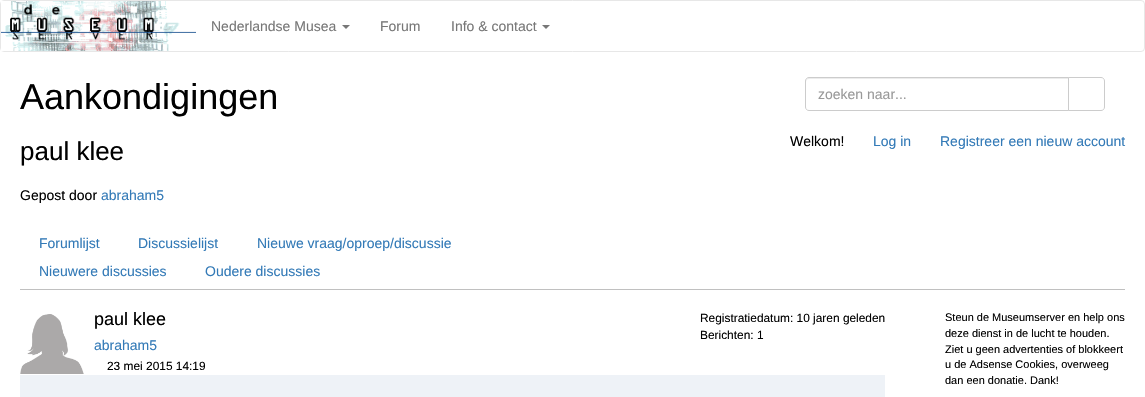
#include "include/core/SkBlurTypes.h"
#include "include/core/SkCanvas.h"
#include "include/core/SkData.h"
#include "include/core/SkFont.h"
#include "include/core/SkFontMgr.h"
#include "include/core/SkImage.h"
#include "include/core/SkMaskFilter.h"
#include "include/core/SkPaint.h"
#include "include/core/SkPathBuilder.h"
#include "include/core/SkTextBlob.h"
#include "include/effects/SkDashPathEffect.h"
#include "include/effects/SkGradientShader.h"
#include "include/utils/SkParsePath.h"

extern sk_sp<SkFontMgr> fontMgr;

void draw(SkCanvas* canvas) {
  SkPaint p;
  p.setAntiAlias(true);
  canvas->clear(SK_ColorWHITE);
  p.setStyle(SkPaint::kStroke_Style);
  p.setStrokeWidth(1);
  p.setColor(SkColorSetRGB(231, 231, 231));
  canvas->drawRoundRect(SkRect::MakeLTRB(0.5f, 0.5f, 1144.5f, 51.5f), 3.5f, 3.5f, p);
  canvas->drawImageRect(SkImages::DeferredFromEncodedData(SkData::MakeFromFileName("images/1.png")), SkRect::MakeLTRB(1, 1, 196, 51), SkSamplingOptions());
  p.setStyle(SkPaint::kFill_Style);
  p.setColor(SkColorSetRGB(119, 119, 119));
  canvas->drawPath(SkPathBuilder().moveTo(342, 25).lineTo(350, 25).lineTo(346, 29).close().detach(), p);
  canvas->drawPath(SkPathBuilder().moveTo(542, 25).lineTo(550, 25).lineTo(546, 29).close().detach(), p);
  p.setColor(SkColorSetRGB(236, 236, 236));
  canvas->drawPath(SkPathBuilder().moveTo(809, 79).lineTo(1068, 79).lineTo(1068, 78).lineTo(809, 78).cubicTo(807, 78, 806, 79, 806, 81).lineTo(806, 82).cubicTo(806, 80, 807, 79, 809, 79).close().detach(), p);
  p.setStyle(SkPaint::kStroke_Style);
  p.setColor(SkColorSetRGB(204, 204, 204));
  canvas->drawPath(SkPathBuilder().moveTo(809, 77.5f).lineTo(1068.5f, 77.5f).lineTo(1068.5f, 110.5f).lineTo(809, 110.5f).cubicTo(807, 110.5f, 805.5f, 109, 805.5f, 107).lineTo(805.5f, 81).cubicTo(805.5f, 79, 807, 77.5f, 809, 77.5f).close().detach(), p);
  p.setStyle(SkPaint::kFill_Style);
  p.setColor(SK_ColorWHITE);
  canvas->drawPath(SkPathBuilder().moveTo(1068.5f, 77.5f).lineTo(1101, 77.5f).cubicTo(1103, 77.5f, 1104.5f, 79, 1104.5f, 81).lineTo(1104.5f, 107).cubicTo(1104.5f, 109, 1103, 110.5f, 1101, 110.5f).lineTo(1068.5f, 110.5f).close().detach(), p);
  p.setStyle(SkPaint::kStroke_Style);
  p.setColor(SkColorSetRGB(204, 204, 204));
  canvas->drawPath(SkPathBuilder().moveTo(1068.5f, 77.5f).lineTo(1101, 77.5f).cubicTo(1103, 77.5f, 1104.5f, 79, 1104.5f, 81).lineTo(1104.5f, 107).cubicTo(1104.5f, 109, 1103, 110.5f, 1101, 110.5f).lineTo(1068.5f, 110.5f).close().detach(), p);
  p.setStyle(SkPaint::kFill_Style);
  p.setColor(SkColorSetRGB(192, 192, 192));
  canvas->drawRect(SkRect::MakeLTRB(20, 289, 1125, 290), p);
  canvas->drawImageRect(SkImages::DeferredFromEncodedData(SkData::MakeFromFileName("images/2.png")), SkRect::MakeLTRB(20, 314, 84, 374), SkSamplingOptions());
  p.setColor(SkColorSetRGB(238, 242, 247));
  canvas->drawRect(SkRect::MakeLTRB(20, 375, 885, 397), p);
  SkFont font1(fontMgr->matchFamilyStyle("Liberation Sans", SkFontStyle::Normal()), 14);
  font1.setSubpixel(true);
  p.setColor(SkColorSetRGB(119, 119, 119));
  canvas->drawString("Nederlandse Musea", 211, 31, font1, p);
  canvas->drawString("Forum", 380, 31, font1, p);
  canvas->drawString("Info & contact", 451, 31, font1, p);
  SkFont font2(fontMgr->matchFamilyStyle("Liberation Sans", SkFontStyle::Normal()), 36);
  font2.setSubpixel(true);
  p.setColor(SK_ColorBLACK);
  canvas->drawString("Aankondigingen", 20, 109, font2, p);
  SkFont font3(fontMgr->matchFamilyStyle("Liberation Sans", SkFontStyle::Normal()), 26);
  font3.setSubpixel(true);
  canvas->drawString("paul klee", 20, 160, font3, p);
  canvas->drawString("Gepost door", 20, 200, font1, p);
  p.setColor(SkColorSetRGB(51, 122, 183));
  canvas->drawString("abraham5", 101, 200, font1, p);
  p.setColor(SkColorSetRGB(153, 153, 153));
  canvas->drawString("zoeken naar...", 818, 99, font1, p);
  p.setColor(SK_ColorBLACK);
  canvas->drawString("Welkom!", 790, 146, font1, p);
  p.setColor(SkColorSetRGB(51, 122, 183));
  canvas->drawString("Log in", 873, 146, font1, p);
  canvas->drawString("Registreer een nieuw account", 940, 146, font1, p);
  canvas->drawString("Forumlijst", 39, 248, font1, p);
  canvas->drawString("Discussielijst", 138, 248, font1, p);
  canvas->drawString("Nieuwe vraag/oproep/discussie", 257, 248, font1, p);
  canvas->drawString("Nieuwere discussies", 39, 276, font1, p);
  canvas->drawString("Oudere discussies", 205, 276, font1, p);
  SkFont font4(fontMgr->matchFamilyStyle("Liberation Sans", SkFontStyle::Normal()), 18);
  font4.setSubpixel(true);
  p.setColor(SK_ColorBLACK);
  canvas->drawString("paul klee", 94, 325, font4, p);
  SkFont font5(fontMgr->matchFamilyStyle("Liberation Sans", SkFontStyle::Normal()), 11.9f);
  font5.setSubpixel(true);
  canvas->drawString("Registratiedatum: 10 jaren geleden", 700, 322, font5, p);
  canvas->drawString("Berichten: 1", 700, 339, font5, p);
  p.setColor(SkColorSetRGB(51, 122, 183));
  canvas->drawString("abraham5", 94, 350, font1, p);
  p.setColor(SK_ColorBLACK);
  canvas->drawString("23 mei 2015 14:19", 107, 370, font5, p);
  SkFont font6(fontMgr->matchFamilyStyle("Liberation Sans", SkFontStyle::Normal()), 11);
  font6.setSubpixel(true);
  canvas->drawString("Steun de Museumserver en help ons", 945, 321, font6, p);
  canvas->drawString("deze dienst in de lucht te houden.", 945, 337, font6, p);
  canvas->drawString("Ziet u geen advertenties of blokkeert", 945, 353, font6, p);
  canvas->drawString("u de Adsense Cookies, overweeg", 945, 368, font6, p);
  canvas->drawString("dan een donatie. Dank!", 945, 384, font6, p);
}
